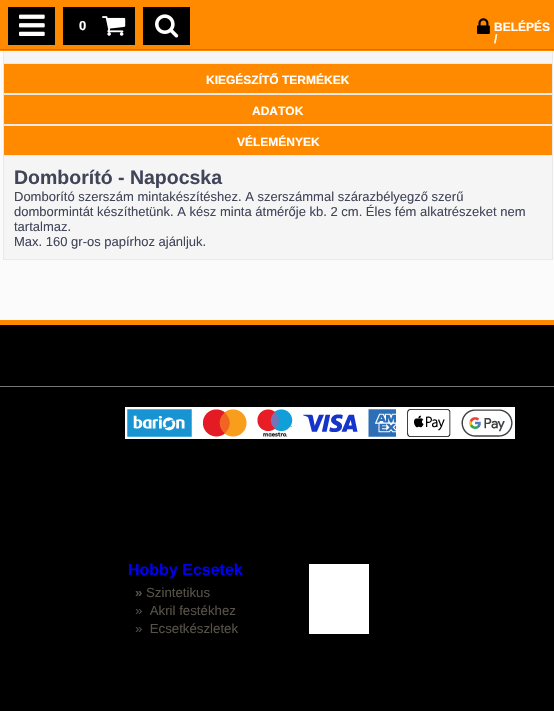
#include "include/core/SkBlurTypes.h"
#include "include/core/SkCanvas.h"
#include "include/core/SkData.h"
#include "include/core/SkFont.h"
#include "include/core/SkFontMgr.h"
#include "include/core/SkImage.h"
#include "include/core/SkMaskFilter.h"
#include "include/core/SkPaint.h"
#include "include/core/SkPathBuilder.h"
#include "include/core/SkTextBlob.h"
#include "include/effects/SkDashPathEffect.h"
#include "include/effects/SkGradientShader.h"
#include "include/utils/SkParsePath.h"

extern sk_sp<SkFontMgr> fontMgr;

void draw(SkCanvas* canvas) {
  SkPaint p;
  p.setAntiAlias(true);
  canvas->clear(SkColorSetRGB(251, 251, 251));
  p.setColor(SkColorSetRGB(255, 138, 0));
  canvas->drawRect(SkRect::MakeLTRB(0, 0, 554, 51), p);
  p.setColor(SkColorSetRGB(109, 134, 150));
  canvas->drawRect(SkRect::MakeLTRB(0, 49, 554, 50), p);
  p.setColor(SK_ColorBLACK);
  canvas->drawRect(SkRect::MakeLTRB(8, 7, 55, 45), p);
  canvas->drawImageRect(SkImages::DeferredFromEncodedData(SkData::MakeFromFileName("images/1.png")), SkRect::MakeLTRB(19, 14, 45, 36), SkSamplingOptions());
  canvas->drawRect(SkRect::MakeLTRB(63, 7, 135, 45), p);
  canvas->drawImageRect(SkImages::DeferredFromEncodedData(SkData::MakeFromFileName("images/2.png")), SkRect::MakeLTRB(102, 16, 126, 36), SkSamplingOptions());
  canvas->drawRect(SkRect::MakeLTRB(143, 7, 190, 45), p);
  canvas->drawImageRect(SkImages::DeferredFromEncodedData(SkData::MakeFromFileName("images/3.png")), SkRect::MakeLTRB(155, 14, 179, 38), SkSamplingOptions());
  canvas->drawImageRect(SkImages::DeferredFromEncodedData(SkData::MakeFromFileName("images/4.png")), SkRect::MakeLTRB(477, 18, 490, 34), SkSamplingOptions());
  p.setColor(SkColorSetRGB(245, 245, 245));
  canvas->drawRect(SkRect::MakeLTRB(4, 51, 552, 62), p);
  p.setColor(SkColorSetRGB(233, 233, 231));
  canvas->drawRect(SkRect::MakeLTRB(552, 51, 553, 63), p);
  p.setColor(SkColorSetRGB(245, 245, 245));
  canvas->drawRect(SkRect::MakeLTRB(3, 62, 553, 63), p);
  p.setColor(SkColorSetRGB(233, 233, 231));
  canvas->drawRect(SkRect::MakeLTRB(3, 51, 4, 63), p);
  p.setColor(SkColorSetRGB(255, 138, 0));
  canvas->drawRect(SkRect::MakeLTRB(3.5f, 63.5f, 552.5f, 93.5f), p);
  p.setStyle(SkPaint::kStroke_Style);
  p.setStrokeWidth(1);
  p.setColor(SkColorSetRGB(233, 233, 231));
  canvas->drawRect(SkRect::MakeLTRB(3.5f, 63.5f, 552.5f, 93.5f), p);
  p.setStyle(SkPaint::kFill_Style);
  p.setColor(SkColorSetRGB(255, 138, 0));
  canvas->drawRect(SkRect::MakeLTRB(3.5f, 94.5f, 552.5f, 124.5f), p);
  p.setStyle(SkPaint::kStroke_Style);
  p.setColor(SkColorSetRGB(233, 233, 231));
  canvas->drawRect(SkRect::MakeLTRB(3.5f, 94.5f, 552.5f, 124.5f), p);
  p.setStyle(SkPaint::kFill_Style);
  p.setColor(SkColorSetRGB(245, 245, 245));
  canvas->drawRect(SkRect::MakeLTRB(3.5f, 155.5f, 552.5f, 259.5f), p);
  p.setStyle(SkPaint::kStroke_Style);
  p.setColor(SkColorSetRGB(233, 233, 231));
  canvas->drawRect(SkRect::MakeLTRB(3.5f, 155.5f, 552.5f, 259.5f), p);
  p.setStyle(SkPaint::kFill_Style);
  p.setColor(SkColorSetRGB(255, 138, 0));
  canvas->drawRect(SkRect::MakeLTRB(3.5f, 125.5f, 552.5f, 155.5f), p);
  p.setStyle(SkPaint::kStroke_Style);
  p.setColor(SkColorSetRGB(233, 233, 231));
  canvas->drawRect(SkRect::MakeLTRB(3.5f, 125.5f, 552.5f, 155.5f), p);
  p.setStyle(SkPaint::kFill_Style);
  p.setColor(SkColorSetRGB(255, 138, 0));
  canvas->drawRect(SkRect::MakeLTRB(0, 320, 554, 325), p);
  p.setColor(SK_ColorBLACK);
  canvas->drawRect(SkRect::MakeLTRB(0, 325, 554, 711), p);
  p.setColor(SkColorSetRGB(119, 118, 118));
  canvas->drawRect(SkRect::MakeLTRB(0, 386, 554, 387), p);
  canvas->drawImageRect(SkImages::DeferredFromEncodedData(SkData::MakeFromFileName("images/5.png")), SkRect::MakeLTRB(125, 407, 515, 439), SkSamplingOptions());
  p.setColor(SK_ColorWHITE);
  canvas->drawRect(SkRect::MakeLTRB(309, 564, 369, 634), p);
  SkFont font1(fontMgr->matchFamilyStyle("Liberation Sans", SkFontStyle::Bold()), 13);
  font1.setSubpixel(true);
  canvas->drawString("0", 79, 30, font1, p);
  SkFont font2(fontMgr->matchFamilyStyle("Liberation Sans", SkFontStyle::Bold()), 12);
  font2.setSubpixel(true);
  canvas->drawString("BELÉPÉS", 494, 31, font2, p);
  canvas->drawString("/", 494, 43, font2, p);
  canvas->drawString("KIEGÉSZÍTŐ TERMÉKEK", 206, 84, font2, p);
  canvas->drawString("ADATOK", 252, 115, font2, p);
  canvas->drawString("VÉLEMÉNYEK", 237, 146, font2, p);
  SkFont font3(fontMgr->matchFamilyStyle("Liberation Sans", SkFontStyle::Bold()), 19.5f);
  font3.setSubpixel(true);
  p.setColor(SkColorSetRGB(65, 69, 88));
  canvas->drawString("Domborító - Napocska", 14, 184, font3, p);
  SkFont font4(fontMgr->matchFamilyStyle("Liberation Sans", SkFontStyle::Normal()), 13);
  font4.setSubpixel(true);
  canvas->drawString("Domborító szerszám mintakészítéshez. A szerszámmal szárazbélyegző szerű", 14, 201, font4, p);
  canvas->drawString("dombormintát készíthetünk. A kész minta átmérője kb. 2 cm. Éles fém alkatrészeket nem", 14, 216, font4, p);
  canvas->drawString("tartalmaz.", 14, 231, font4, p);
  canvas->drawString("Max. 160 gr-os papírhoz ajánljuk.", 14, 246, font4, p);
  SkFont font5(fontMgr->matchFamilyStyle("Liberation Sans", SkFontStyle::Bold()), 16);
  font5.setSubpixel(true);
  p.setColor(SkColorSetRGB(0, 0, 238));
  canvas->drawString("Hobby Ecsetek", 128, 575, font5, p);
  SkFont font6(fontMgr->matchFamilyStyle("Liberation Sans", SkFontStyle::Bold()), 13.25f);
  font6.setSubpixel(true);
  p.setColor(SkColorSetRGB(86, 82, 71));
  canvas->drawString("»", 135, 597, font6, p);
  SkFont font7(fontMgr->matchFamilyStyle("Liberation Sans", SkFontStyle::Normal()), 13.25f);
  font7.setSubpixel(true);
  canvas->drawString("Szintetikus", 146, 597, font7, p);
  canvas->drawString("»  Akril festékhez", 135, 615, font7, p);
  canvas->drawString("»  Ecsetkészletek", 135, 633, font7, p);
}
